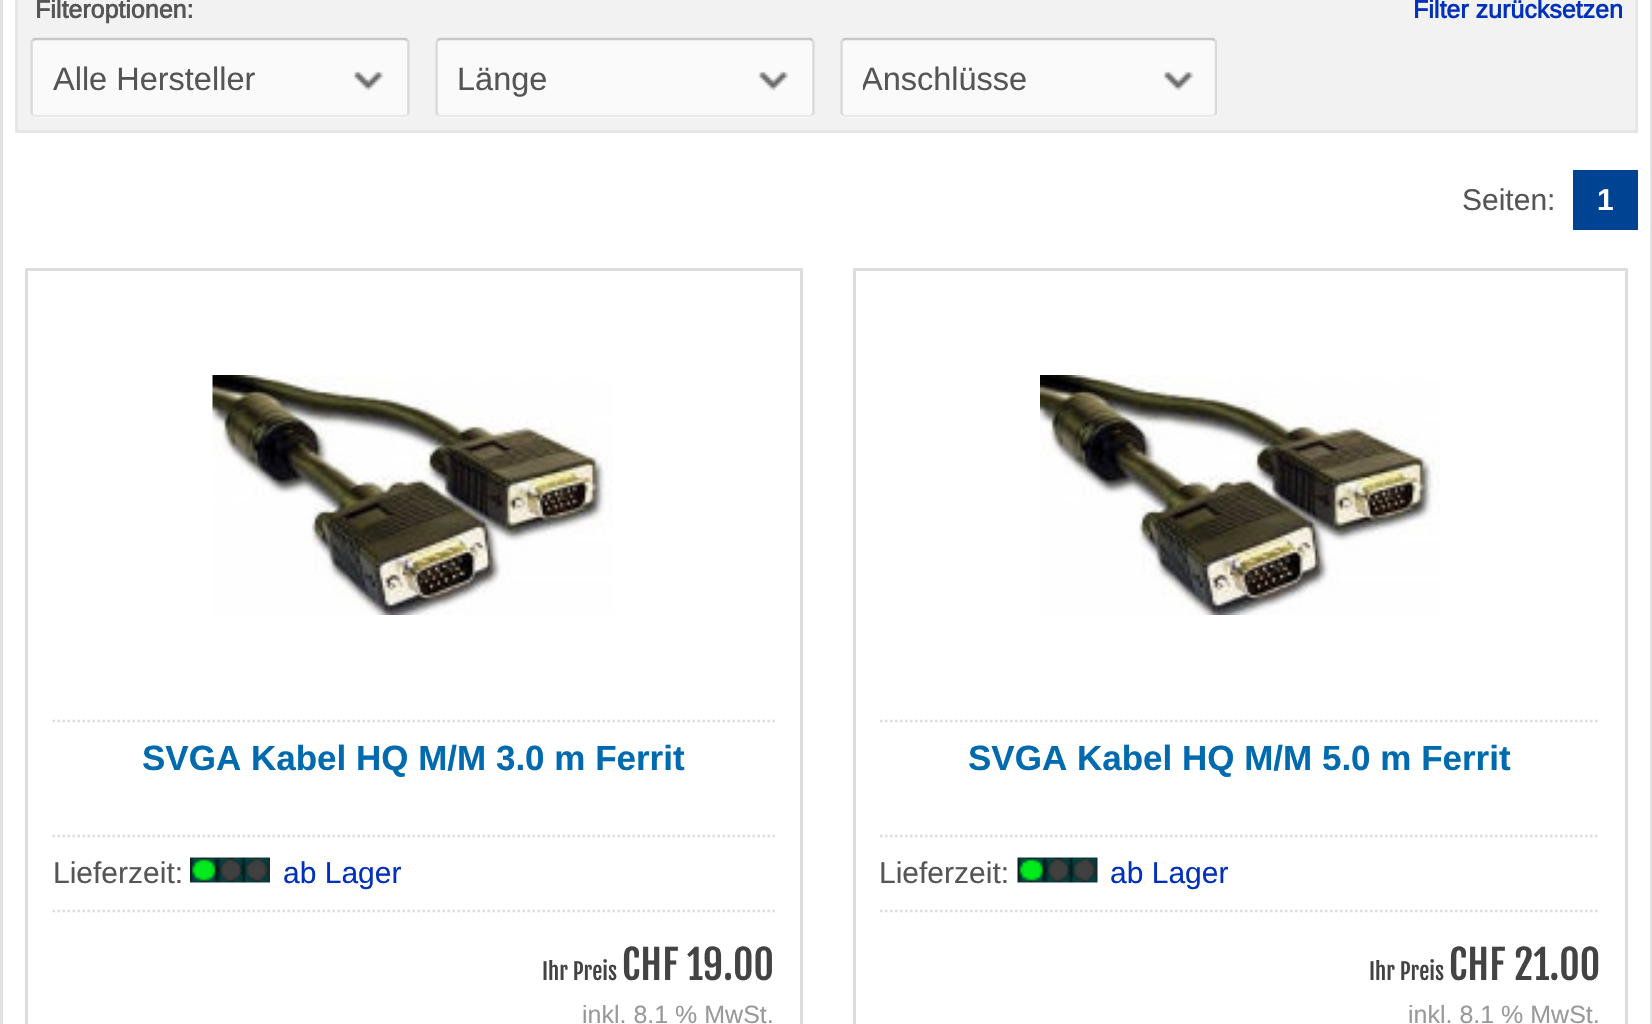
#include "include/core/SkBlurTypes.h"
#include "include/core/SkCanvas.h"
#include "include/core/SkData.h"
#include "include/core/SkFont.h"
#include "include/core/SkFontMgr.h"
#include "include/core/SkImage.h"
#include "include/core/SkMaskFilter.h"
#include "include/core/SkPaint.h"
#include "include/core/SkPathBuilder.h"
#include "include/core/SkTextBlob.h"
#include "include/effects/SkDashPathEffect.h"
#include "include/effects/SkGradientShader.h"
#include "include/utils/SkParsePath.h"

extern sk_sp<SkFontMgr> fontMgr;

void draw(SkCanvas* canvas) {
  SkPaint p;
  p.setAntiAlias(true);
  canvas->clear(SK_ColorWHITE);
  p.setColor(SkColorSetRGB(225, 225, 225));
  canvas->drawRect(SkRect::MakeLTRB(1650, 0, 1652, 1024), p);
  canvas->drawRect(SkRect::MakeLTRB(0, 0, 3, 1024), p);
  p.setColor(SkColorSetRGB(242, 242, 242));
  canvas->drawRect(SkRect::MakeLTRB(16.5f, -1.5f, 1636.5f, 131.5f), p);
  p.setStyle(SkPaint::kStroke_Style);
  p.setStrokeWidth(3);
  p.setColor(SkColorSetRGB(230, 230, 230));
  canvas->drawRect(SkRect::MakeLTRB(16.5f, -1.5f, 1636.5f, 131.5f), p);
  p.setStyle(SkPaint::kFill_Style);
  p.setColor(SkColorSetRGB(250, 250, 250));
  canvas->drawRoundRect(SkRect::MakeLTRB(30, 38, 410, 118), 5, 5, p);
  p.setStyle(SkPaint::kStroke_Style);
  p.setStrokeWidth(2.5f);
  p.setColor(SkColorSetRGB(198, 198, 198));
  canvas->drawPath(SkPathBuilder().moveTo(32.5f, 40).lineTo(35, 39).lineTo(405, 39).lineTo(407.5f, 40).detach(), p);
  p.setColor(SkColorSetRGB(218, 218, 218));
  canvas->drawPath(SkPathBuilder().moveTo(407.5f, 40).lineTo(408.5f, 42).lineTo(408.5f, 113).lineTo(407.5f, 115).detach(), p);
  p.setColor(SkColorSetRGB(234, 234, 234));
  canvas->drawPath(SkPathBuilder().moveTo(407.5f, 115).lineTo(405, 116).lineTo(35, 116).lineTo(32.5f, 115).detach(), p);
  p.setColor(SkColorSetRGB(218, 218, 218));
  canvas->drawPath(SkPathBuilder().moveTo(32.5f, 115).lineTo(31.5f, 113).lineTo(31.5f, 42).lineTo(32.5f, 40).detach(), p);
  canvas->drawImageRect(SkImages::DeferredFromEncodedData(SkData::MakeFromFileName("images/1.png")), SkRect::MakeLTRB(352, 71, 384, 91), SkSamplingOptions());
  p.setStyle(SkPaint::kFill_Style);
  p.setColor(SkColorSetRGB(250, 250, 250));
  canvas->drawRoundRect(SkRect::MakeLTRB(435, 38, 815, 118), 5, 5, p);
  p.setStyle(SkPaint::kStroke_Style);
  p.setColor(SkColorSetRGB(198, 198, 198));
  canvas->drawPath(SkPathBuilder().moveTo(437.5f, 40).lineTo(440, 39).lineTo(810, 39).lineTo(812.5f, 40).detach(), p);
  p.setColor(SkColorSetRGB(218, 218, 218));
  canvas->drawPath(SkPathBuilder().moveTo(812.5f, 40).lineTo(813.5f, 42).lineTo(813.5f, 113).lineTo(812.5f, 115).detach(), p);
  p.setColor(SkColorSetRGB(234, 234, 234));
  canvas->drawPath(SkPathBuilder().moveTo(812.5f, 115).lineTo(810, 116).lineTo(440, 116).lineTo(437.5f, 115).detach(), p);
  p.setColor(SkColorSetRGB(218, 218, 218));
  canvas->drawPath(SkPathBuilder().moveTo(437.5f, 115).lineTo(436.5f, 113).lineTo(436.5f, 42).lineTo(437.5f, 40).detach(), p);
  canvas->drawImageRect(SkImages::DeferredFromEncodedData(SkData::MakeFromFileName("images/2.png")), SkRect::MakeLTRB(757, 71, 789, 91), SkSamplingOptions());
  p.setStyle(SkPaint::kFill_Style);
  p.setColor(SkColorSetRGB(250, 250, 250));
  canvas->drawRoundRect(SkRect::MakeLTRB(840, 38, 1218, 118), 5, 5, p);
  p.setStyle(SkPaint::kStroke_Style);
  p.setColor(SkColorSetRGB(198, 198, 198));
  canvas->drawPath(SkPathBuilder().moveTo(842.5f, 40).lineTo(845, 39).lineTo(1212.5f, 39).lineTo(1215, 40).detach(), p);
  p.setColor(SkColorSetRGB(218, 218, 218));
  canvas->drawPath(SkPathBuilder().moveTo(1215, 40).lineTo(1216, 42).lineTo(1216, 113).lineTo(1215, 115).detach(), p);
  p.setColor(SkColorSetRGB(234, 234, 234));
  canvas->drawPath(SkPathBuilder().moveTo(1215, 115).lineTo(1212.5f, 116).lineTo(845, 116).lineTo(842.5f, 115).detach(), p);
  p.setColor(SkColorSetRGB(218, 218, 218));
  canvas->drawPath(SkPathBuilder().moveTo(842.5f, 115).lineTo(841.5f, 113).lineTo(841.5f, 42).lineTo(842.5f, 40).detach(), p);
  canvas->drawImageRect(SkImages::DeferredFromEncodedData(SkData::MakeFromFileName("images/1.png")), SkRect::MakeLTRB(1162, 71, 1194, 91), SkSamplingOptions());
  p.setStyle(SkPaint::kFill_Style);
  p.setColor(SkColorSetRGB(0, 67, 147));
  canvas->drawRect(SkRect::MakeLTRB(1573, 170, 1638, 230), p);
  p.setStyle(SkPaint::kStroke_Style);
  p.setStrokeWidth(3);
  p.setColor(SkColorSetRGB(221, 221, 221));
  canvas->drawRect(SkRect::MakeLTRB(26.5f, 269.5f, 801.5f, 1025.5f), p);
  canvas->drawImageRect(SkImages::DeferredFromEncodedData(SkData::MakeFromFileName("images/3.png")), SkRect::MakeLTRB(212, 375, 613, 615), SkSamplingOptions());
  p.setStrokeWidth(2.5f);
  p.setPathEffect(SkDashPathEffect::Make({{2.5f, 2.5f}}, 0));
  canvas->drawPath(SkPathBuilder().moveTo(52.5f, 721).lineTo(775, 721).detach(), p);
  p.setPathEffect(nullptr);
  p.setPathEffect(SkDashPathEffect::Make({{2.5f, 2.5f}}, 0));
  canvas->drawPath(SkPathBuilder().moveTo(52.5f, 836).lineTo(775, 836).detach(), p);
  p.setPathEffect(nullptr);
  p.setPathEffect(SkDashPathEffect::Make({{2.5f, 2.5f}}, 0));
  canvas->drawPath(SkPathBuilder().moveTo(52.5f, 911).lineTo(775, 911).detach(), p);
  p.setPathEffect(nullptr);
  canvas->drawImageRect(SkImages::DeferredFromEncodedData(SkData::MakeFromFileName("images/4.png")), SkRect::MakeLTRB(190, 857, 270, 883), SkSamplingOptions());
  p.setStrokeWidth(3);
  canvas->drawRect(SkRect::MakeLTRB(854.5f, 269.5f, 1626.5f, 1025.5f), p);
  canvas->drawImageRect(SkImages::DeferredFromEncodedData(SkData::MakeFromFileName("images/5.png")), SkRect::MakeLTRB(1040, 375, 1440, 615), SkSamplingOptions());
  p.setStrokeWidth(2.5f);
  p.setPathEffect(SkDashPathEffect::Make({{2.5f, 2.5f}}, 0));
  canvas->drawPath(SkPathBuilder().moveTo(880, 721).lineTo(1600, 721).detach(), p);
  p.setPathEffect(nullptr);
  p.setPathEffect(SkDashPathEffect::Make({{2.5f, 2.5f}}, 0));
  canvas->drawPath(SkPathBuilder().moveTo(880, 836).lineTo(1600, 836).detach(), p);
  p.setPathEffect(nullptr);
  p.setPathEffect(SkDashPathEffect::Make({{2.5f, 2.5f}}, 0));
  canvas->drawPath(SkPathBuilder().moveTo(880, 911).lineTo(1600, 911).detach(), p);
  p.setPathEffect(nullptr);
  canvas->drawImageRect(SkImages::DeferredFromEncodedData(SkData::MakeFromFileName("images/6.png")), SkRect::MakeLTRB(1017, 857, 1098, 883), SkSamplingOptions());
  SkFont font1(fontMgr->matchFamilyStyle("Arimo", SkFontStyle::Bold()), 25);
  font1.setSubpixel(true);
  p.setStyle(SkPaint::kFill_Style);
  p.setColor(SkColorSetRGB(85, 85, 85));
  canvas->drawString("Filteroptionen:", 35, 18, font1, p);
  p.setColor(SkColorSetRGB(1, 49, 186));
  canvas->drawString("Filter zurücksetzen", 1413, 18, font1, p);
  SkFont font2(fontMgr->matchFamilyStyle("Arimo", SkFontStyle::Normal()), 32.5f);
  font2.setSubpixel(true);
  p.setColor(SkColorSetRGB(85, 85, 85));
  canvas->drawString("Alle Hersteller", 53, 90, font2, p);
  canvas->drawString("Länge", 457, 90, font2, p);
  canvas->save();
  canvas->clipRect(SkRect::MakeLTRB(863, 55, 1195, 103));
  canvas->drawString("Anschlüsse", 861, 90, font2, p);
  canvas->restore();
  SkFont font3(fontMgr->matchFamilyStyle("Arimo", SkFontStyle::Normal()), 30);
  font3.setSubpixel(true);
  canvas->drawString("Seiten:", 1462, 210, font3, p);
  SkFont font4(fontMgr->matchFamilyStyle("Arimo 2", SkFontStyle::Bold()), 30);
  font4.setSubpixel(true);
  p.setColor(SK_ColorWHITE);
  canvas->drawString("1", 1597, 210, font4, p);
  SkFont font5(fontMgr->matchFamilyStyle("Arimo 2", SkFontStyle::Bold()), 35);
  font5.setSubpixel(true);
  p.setColor(SkColorSetRGB(0, 106, 175));
  canvas->drawString("SVGA Kabel HQ M/M 3.0 m Ferrit", 142, 770, font5, p);
  p.setColor(SkColorSetRGB(85, 85, 85));
  canvas->drawString("Lieferzeit:", 53, 883, font3, p);
  p.setColor(SkColorSetRGB(1, 49, 186));
  canvas->drawString("ab Lager", 283, 883, font3, p);
  SkFont font6(fontMgr->matchFamilyStyle("Fjalla One", SkFontStyle::Normal()), 22.5f);
  font6.setSubpixel(true);
  p.setColor(SkColorSetRGB(67, 67, 67));
  canvas->drawString("Ihr Preis", 542, 980, font6, p);
  SkFont font7(fontMgr->matchFamilyStyle("Fjalla One", SkFontStyle::Normal()), 40);
  font7.setSubpixel(true);
  canvas->drawString("CHF 19.00", 622, 980, font7, p);
  SkFont font8(fontMgr->matchFamilyStyle("Arimo", SkFontStyle::Normal()), 25);
  font8.setSubpixel(true);
  p.setColor(SkColorSetRGB(153, 153, 153));
  canvas->drawString("inkl. 8.1 % MwSt.", 582, 1023, font8, p);
  p.setColor(SkColorSetRGB(0, 106, 175));
  canvas->drawString("SVGA Kabel HQ M/M 5.0 m Ferrit", 968, 770, font5, p);
  p.setColor(SkColorSetRGB(85, 85, 85));
  canvas->drawString("Lieferzeit:", 879, 883, font3, p);
  p.setColor(SkColorSetRGB(1, 49, 186));
  canvas->drawString("ab Lager", 1110, 883, font3, p);
  p.setColor(SkColorSetRGB(67, 67, 67));
  canvas->drawString("Ihr Preis", 1369, 980, font6, p);
  canvas->drawString("CHF 21.00", 1449, 980, font7, p);
  p.setColor(SkColorSetRGB(153, 153, 153));
  canvas->drawString("inkl. 8.1 % MwSt.", 1408, 1023, font8, p);
}
